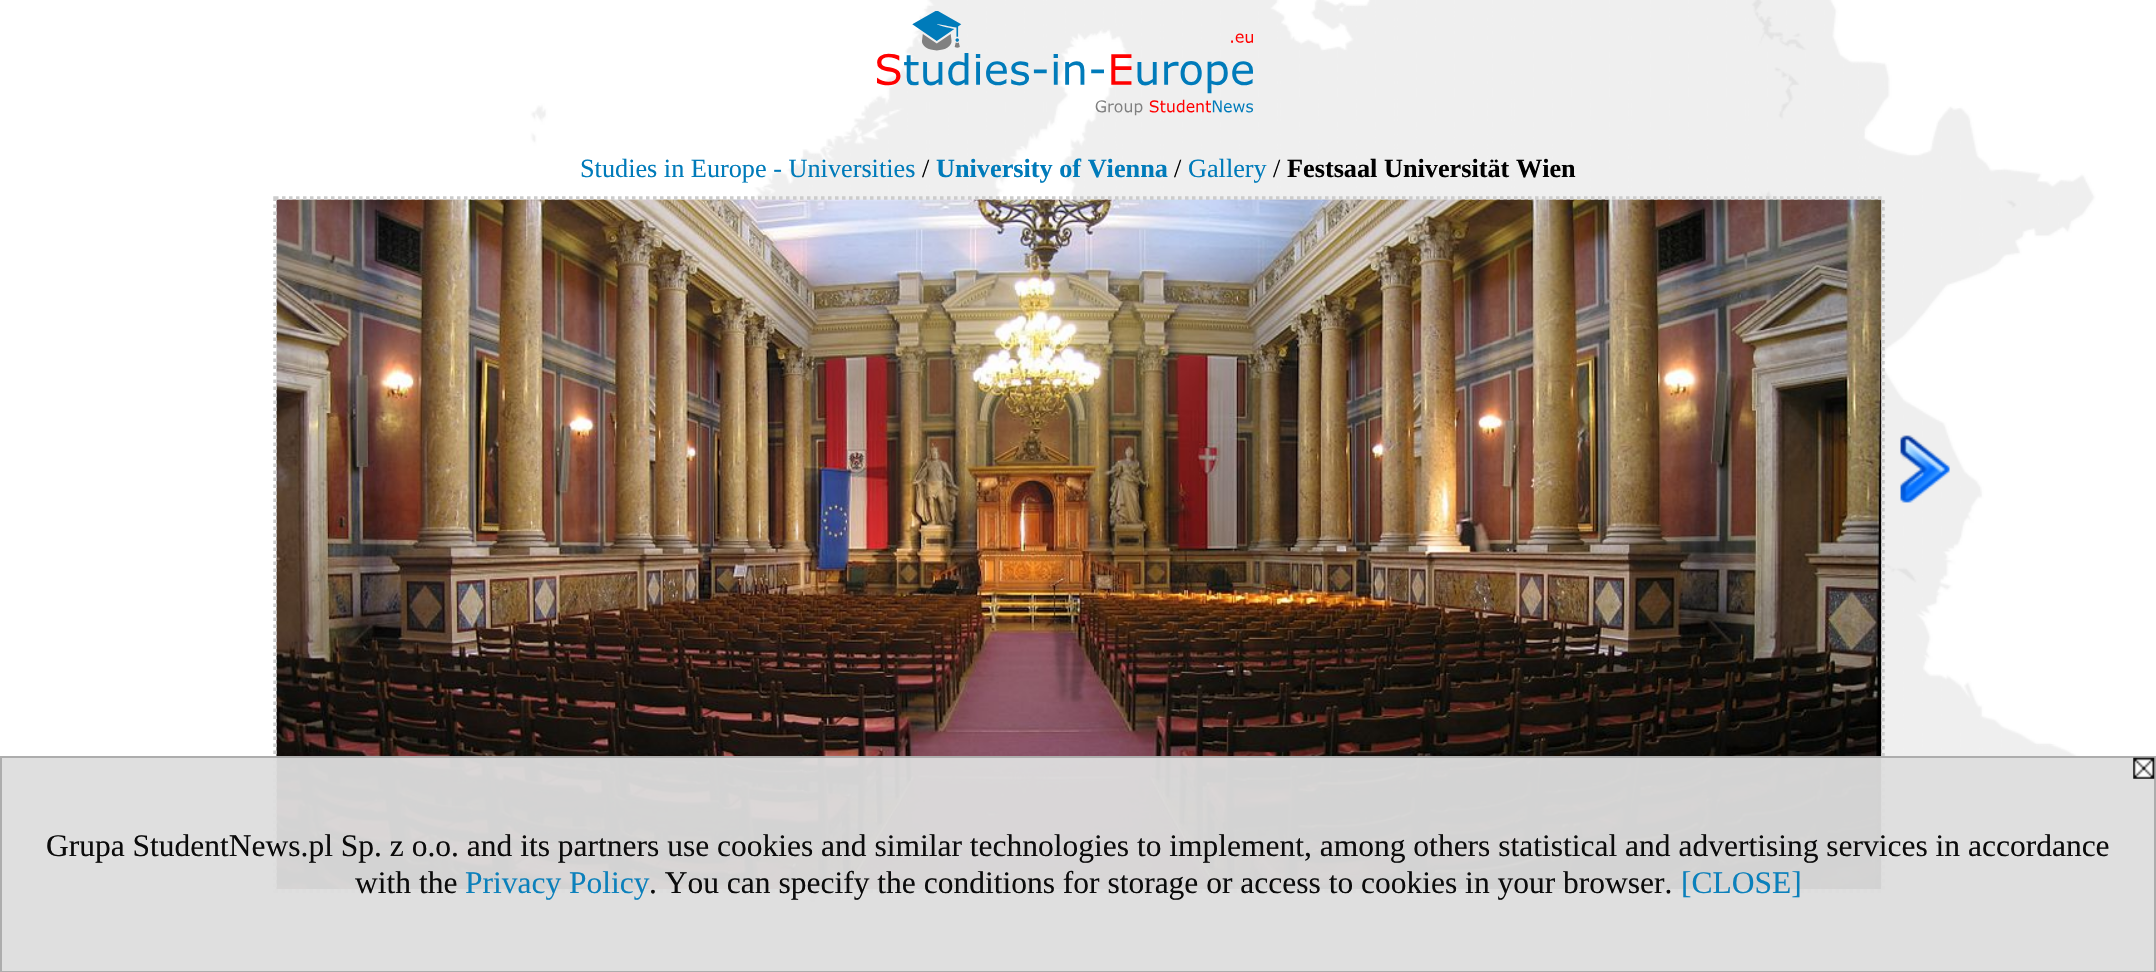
#include "include/core/SkBlurTypes.h"
#include "include/core/SkCanvas.h"
#include "include/core/SkData.h"
#include "include/core/SkFont.h"
#include "include/core/SkFontMgr.h"
#include "include/core/SkImage.h"
#include "include/core/SkMaskFilter.h"
#include "include/core/SkPaint.h"
#include "include/core/SkPathBuilder.h"
#include "include/core/SkTextBlob.h"
#include "include/effects/SkDashPathEffect.h"
#include "include/effects/SkGradientShader.h"
#include "include/utils/SkParsePath.h"

extern sk_sp<SkFontMgr> fontMgr;

void draw(SkCanvas* canvas) {
  SkPaint p;
  p.setAntiAlias(true);
  canvas->clear(SK_ColorWHITE);
  canvas->drawImageRect(SkImages::DeferredFromEncodedData(SkData::MakeFromFileName("images/1.png")), SkRect::MakeLTRB(121, 0, 2101, 972), SkSamplingOptions());
  canvas->drawImageRect(SkImages::DeferredFromEncodedData(SkData::MakeFromFileName("images/2.png")), SkRect::MakeLTRB(877, 11, 1253, 116), SkSamplingOptions());
  canvas->drawImageRect(SkImages::DeferredFromEncodedData(SkData::MakeFromFileName("images/3.png")), SkRect::MakeLTRB(276, 199, 1882, 889), SkSamplingOptions());
  p.setStyle(SkPaint::kStroke_Style);
  p.setStrokeWidth(3.5f);
  p.setColor(SkColorSetRGB(204, 204, 204));
  p.setPathEffect(SkDashPathEffect::Make({{3.5f, 3.5f}}, 0));
  canvas->drawPath(SkPathBuilder().moveTo(275, 198).lineTo(1883, 198).lineTo(1883, 891).lineTo(275, 891).close().detach(), p);
  p.setPathEffect(nullptr);
  canvas->drawImageRect(SkImages::DeferredFromEncodedData(SkData::MakeFromFileName("images/4.png")), SkRect::MakeLTRB(1900, 435, 1950, 503), SkSamplingOptions());
  p.setStyle(SkPaint::kFill_Style);
  p.setColor(SkColorSetARGB(242, 221, 221, 221));
  canvas->drawRect(SkRect::MakeLTRB(0, 756, 2156, 972), p);
  p.setStyle(SkPaint::kStroke_Style);
  p.setStrokeWidth(2);
  p.setColor(SkColorSetARGB(242, 170, 170, 170));
  canvas->drawRect(SkRect::MakeLTRB(1, 757, 2155, 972), p);
  canvas->drawImageRect(SkImages::DeferredFromEncodedData(SkData::MakeFromFileName("images/5.png")), SkRect::MakeLTRB(2133, 757, 2155, 779), SkSamplingOptions());
  SkFont font1(fontMgr->matchFamilyStyle("Liberation Serif", SkFontStyle::Normal()), 26.25f);
  font1.setSubpixel(true);
  p.setStyle(SkPaint::kFill_Style);
  p.setColor(SkColorSetRGB(0, 123, 186));
  canvas->drawString("Studies in Europe - Universities", 580, 177, font1, p);
  p.setColor(SK_ColorBLACK);
  canvas->drawString("/", 922, 177, font1, p);
  SkFont font2(fontMgr->matchFamilyStyle("Liberation Serif", SkFontStyle::Bold()), 26.25f);
  font2.setSubpixel(true);
  p.setColor(SkColorSetRGB(0, 123, 186));
  canvas->drawString("University of Vienna", 936, 177, font2, p);
  p.setColor(SK_ColorBLACK);
  canvas->drawString("/", 1174, 177, font1, p);
  p.setColor(SkColorSetRGB(0, 123, 186));
  canvas->drawString("Gallery", 1188, 177, font1, p);
  p.setColor(SK_ColorBLACK);
  canvas->drawString("/", 1273, 177, font1, p);
  canvas->drawString("Festsaal Universität Wien", 1287, 177, font2, p);
  SkFont font3(fontMgr->matchFamilyStyle("Liberation Serif", SkFontStyle::Normal()), 31.5f);
  font3.setSubpixel(true);
  p.setColor(SkColorSetRGB(11, 11, 11));
  canvas->drawString("Grupa StudentNews.pl Sp. z o.o. and its partners use cookies and similar technologies to implement, among others statistical and advertising services in accordance", 46, 856, font3, p);
  canvas->drawString("with the", 355, 893, font3, p);
  p.setColor(SkColorSetRGB(11, 128, 187));
  canvas->drawString("Privacy Policy", 465, 893, font3, p);
  p.setColor(SkColorSetRGB(11, 11, 11));
  canvas->drawString(". You can specify the conditions for storage or access to cookies in your browser.", 649, 893, font3, p);
  p.setColor(SkColorSetRGB(11, 128, 187));
  canvas->drawString("[CLOSE]", 1681, 893, font3, p);
}
